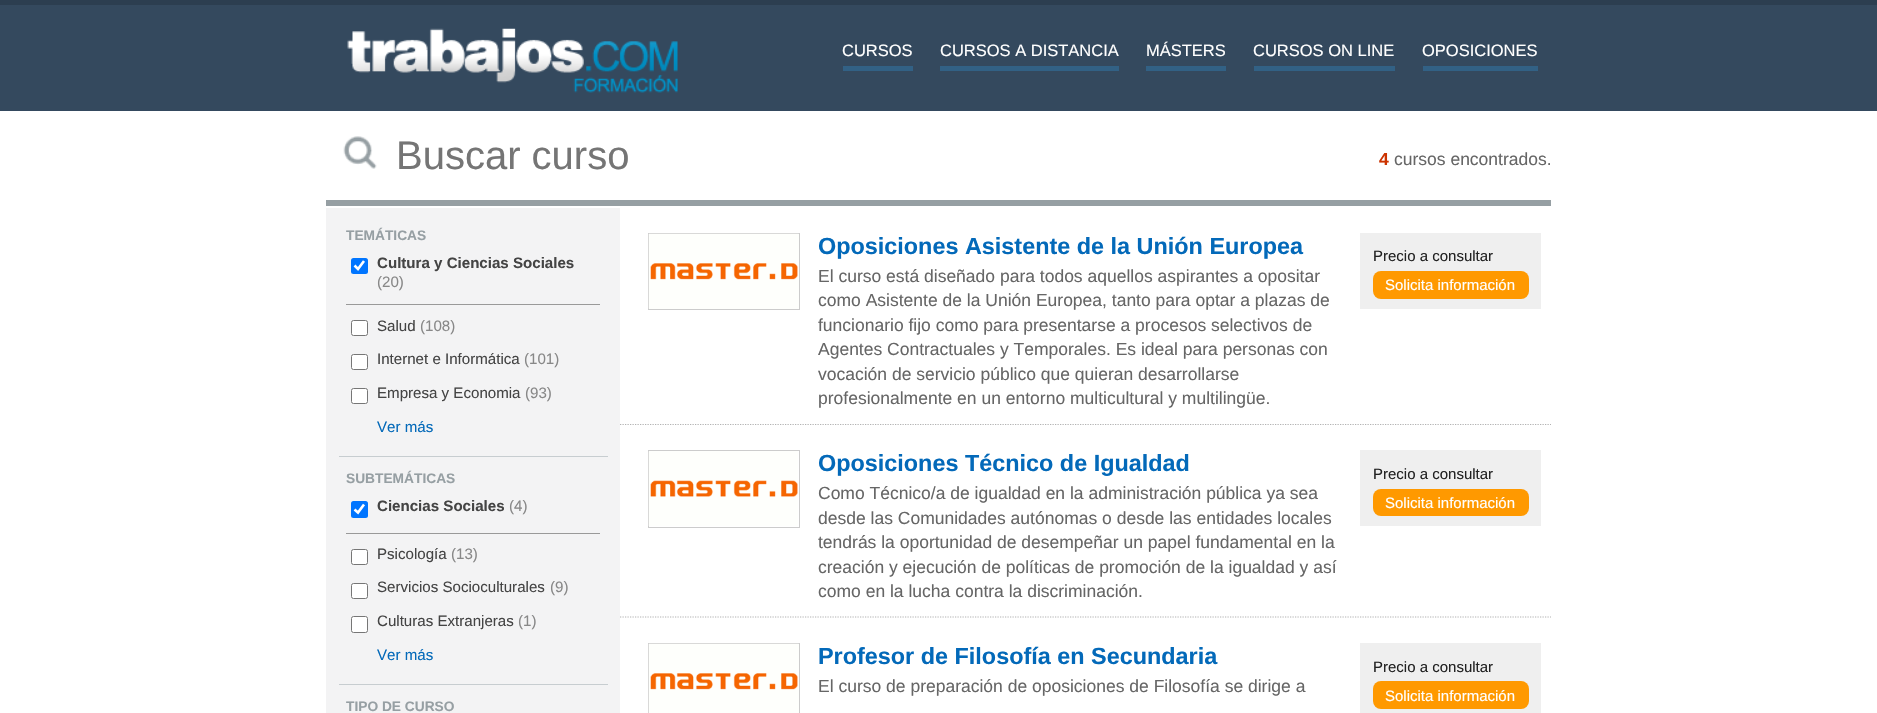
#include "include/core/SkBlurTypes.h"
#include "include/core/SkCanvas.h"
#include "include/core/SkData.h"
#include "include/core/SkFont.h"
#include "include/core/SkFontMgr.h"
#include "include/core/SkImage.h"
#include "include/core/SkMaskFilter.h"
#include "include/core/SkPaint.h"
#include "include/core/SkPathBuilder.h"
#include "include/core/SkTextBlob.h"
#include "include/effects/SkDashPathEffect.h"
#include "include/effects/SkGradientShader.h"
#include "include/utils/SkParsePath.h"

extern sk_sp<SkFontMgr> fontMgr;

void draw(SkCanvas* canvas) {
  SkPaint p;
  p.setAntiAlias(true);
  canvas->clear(SK_ColorWHITE);
  p.setColor(SkColorSetRGB(52, 73, 94));
  canvas->drawRect(SkRect::MakeLTRB(0, 5, 1877, 111), p);
  p.setColor(SkColorSetRGB(44, 62, 80));
  canvas->drawRect(SkRect::MakeLTRB(0, 0, 1877, 5), p);
  canvas->drawImageRect(SkImages::DeferredFromEncodedData(SkData::MakeFromFileName("images/1.png")), SkRect::MakeLTRB(347, 28, 678, 93), SkSamplingOptions());
  p.setColor(SkColorSetRGB(50, 97, 133));
  canvas->drawRect(SkRect::MakeLTRB(843, 66, 913, 71), p);
  canvas->drawRect(SkRect::MakeLTRB(940, 66, 1119, 71), p);
  canvas->drawRect(SkRect::MakeLTRB(1146, 66, 1226, 71), p);
  canvas->drawRect(SkRect::MakeLTRB(1254, 66, 1395, 71), p);
  canvas->drawRect(SkRect::MakeLTRB(1423, 66, 1538, 71), p);
  p.setColor(SkColorSetRGB(150, 159, 163));
  canvas->drawRect(SkRect::MakeLTRB(326, 200, 1551, 206), p);
  canvas->drawImageRect(SkImages::DeferredFromEncodedData(SkData::MakeFromFileName("images/2.png")), SkRect::MakeLTRB(343, 136, 377, 169), SkSamplingOptions());
  p.setColor(SkColorSetRGB(243, 243, 244));
  canvas->drawRect(SkRect::MakeLTRB(326, 208, 620, 713), p);
  p.setColor(SkColorSetRGB(199, 205, 208));
  canvas->drawRect(SkRect::MakeLTRB(339, 456, 608, 457), p);
  p.setColor(SkColorSetRGB(153, 153, 153));
  canvas->drawRect(SkRect::MakeLTRB(346, 304, 600, 305), p);
  p.setColor(SkColorSetRGB(0, 117, 255));
  canvas->drawRoundRect(SkRect::MakeLTRB(351, 258, 368, 274), 2.5f, 2.5f, p);
  p.setStyle(SkPaint::kStroke_Style);
  p.setStrokeWidth(2.6f);
  p.setColor(SK_ColorWHITE);
  canvas->drawPath(SkPathBuilder().moveTo(354.5f, 265.5f).lineTo(358, 269).lineTo(364, 261).detach(), p);
  p.setStyle(SkPaint::kFill_Style);
  canvas->drawRoundRect(SkRect::MakeLTRB(351.5f, 320.5f, 367.5f, 335.5f), 2, 2, p);
  p.setStyle(SkPaint::kStroke_Style);
  p.setStrokeWidth(1);
  p.setColor(SkColorSetRGB(118, 118, 118));
  canvas->drawRoundRect(SkRect::MakeLTRB(351.5f, 320.5f, 367.5f, 335.5f), 2, 2, p);
  p.setStyle(SkPaint::kFill_Style);
  p.setColor(SK_ColorWHITE);
  canvas->drawRoundRect(SkRect::MakeLTRB(351.5f, 354.5f, 367.5f, 369.5f), 2, 2, p);
  p.setStyle(SkPaint::kStroke_Style);
  p.setColor(SkColorSetRGB(118, 118, 118));
  canvas->drawRoundRect(SkRect::MakeLTRB(351.5f, 354.5f, 367.5f, 369.5f), 2, 2, p);
  p.setStyle(SkPaint::kFill_Style);
  p.setColor(SK_ColorWHITE);
  canvas->drawRoundRect(SkRect::MakeLTRB(351.5f, 388.5f, 367.5f, 403.5f), 2, 2, p);
  p.setStyle(SkPaint::kStroke_Style);
  p.setColor(SkColorSetRGB(118, 118, 118));
  canvas->drawRoundRect(SkRect::MakeLTRB(351.5f, 388.5f, 367.5f, 403.5f), 2, 2, p);
  p.setStyle(SkPaint::kFill_Style);
  p.setColor(SkColorSetRGB(199, 205, 208));
  canvas->drawRect(SkRect::MakeLTRB(339, 684, 608, 685), p);
  p.setColor(SkColorSetRGB(153, 153, 153));
  canvas->drawRect(SkRect::MakeLTRB(346, 533, 600, 534), p);
  p.setColor(SkColorSetRGB(0, 117, 255));
  canvas->drawRoundRect(SkRect::MakeLTRB(351, 501, 368, 518), 2.5f, 2.5f, p);
  p.setStyle(SkPaint::kStroke_Style);
  p.setStrokeWidth(2.6f);
  p.setColor(SK_ColorWHITE);
  canvas->drawPath(SkPathBuilder().moveTo(354.5f, 509.5f).lineTo(358, 512.5f).lineTo(364, 504.5f).detach(), p);
  p.setStyle(SkPaint::kFill_Style);
  canvas->drawRoundRect(SkRect::MakeLTRB(351.5f, 549.5f, 367.5f, 564.5f), 2, 2, p);
  p.setStyle(SkPaint::kStroke_Style);
  p.setStrokeWidth(1);
  p.setColor(SkColorSetRGB(118, 118, 118));
  canvas->drawRoundRect(SkRect::MakeLTRB(351.5f, 549.5f, 367.5f, 564.5f), 2, 2, p);
  p.setStyle(SkPaint::kFill_Style);
  p.setColor(SK_ColorWHITE);
  canvas->drawRoundRect(SkRect::MakeLTRB(351.5f, 583.5f, 367.5f, 598.5f), 2, 2, p);
  p.setStyle(SkPaint::kStroke_Style);
  p.setColor(SkColorSetRGB(118, 118, 118));
  canvas->drawRoundRect(SkRect::MakeLTRB(351.5f, 583.5f, 367.5f, 598.5f), 2, 2, p);
  p.setStyle(SkPaint::kFill_Style);
  p.setColor(SK_ColorWHITE);
  canvas->drawRoundRect(SkRect::MakeLTRB(351.5f, 616.5f, 367.5f, 632.5f), 2, 2, p);
  p.setStyle(SkPaint::kStroke_Style);
  p.setColor(SkColorSetRGB(118, 118, 118));
  canvas->drawRoundRect(SkRect::MakeLTRB(351.5f, 616.5f, 367.5f, 632.5f), 2, 2, p);
  p.setStrokeWidth(1.2f);
  p.setColor(SkColorSetRGB(178, 178, 178));
  p.setPathEffect(SkDashPathEffect::Make({{1.25f, 1.25f}}, 0));
  canvas->drawPath(SkPathBuilder().moveTo(620, 424.5f).lineTo(1551, 424.5f).detach(), p);
  p.setPathEffect(nullptr);
  p.setStrokeWidth(1);
  p.setColor(SkColorSetRGB(204, 204, 204));
  canvas->drawRect(SkRect::MakeLTRB(648.5f, 233.5f, 799.5f, 309.5f), p);
  canvas->drawImageRect(SkImages::DeferredFromEncodedData(SkData::MakeFromFileName("images/3.png")), SkRect::MakeLTRB(648, 233, 799, 309), SkSamplingOptions());
  p.setStyle(SkPaint::kFill_Style);
  p.setColor(SkColorSetRGB(239, 239, 239));
  canvas->drawRect(SkRect::MakeLTRB(1360, 233, 1541, 309), p);
  p.setColor(SkColorSetRGB(255, 153, 0));
  canvas->drawRoundRect(SkRect::MakeLTRB(1373, 271, 1529, 299), 8, 8, p);
  p.setStyle(SkPaint::kStroke_Style);
  p.setStrokeWidth(1.2f);
  p.setColor(SkColorSetRGB(178, 178, 178));
  p.setPathEffect(SkDashPathEffect::Make({{1.25f, 1.25f}}, 0));
  canvas->drawPath(SkPathBuilder().moveTo(620, 617).lineTo(1551, 617).detach(), p);
  p.setPathEffect(nullptr);
  p.setStrokeWidth(1);
  p.setColor(SkColorSetRGB(204, 204, 204));
  canvas->drawRect(SkRect::MakeLTRB(648.5f, 450.5f, 799.5f, 527.5f), p);
  canvas->drawImageRect(SkImages::DeferredFromEncodedData(SkData::MakeFromFileName("images/4.png")), SkRect::MakeLTRB(648, 451, 798, 526), SkSamplingOptions());
  p.setStyle(SkPaint::kFill_Style);
  p.setColor(SkColorSetRGB(239, 239, 239));
  canvas->drawRect(SkRect::MakeLTRB(1360, 450, 1541, 526), p);
  p.setColor(SkColorSetRGB(255, 153, 0));
  canvas->drawRoundRect(SkRect::MakeLTRB(1373, 489, 1529, 516), 8, 8, p);
  p.setStyle(SkPaint::kStroke_Style);
  p.setColor(SkColorSetRGB(204, 204, 204));
  canvas->drawRect(SkRect::MakeLTRB(648.5f, 643.5f, 799.5f, 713.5f), p);
  canvas->drawImageRect(SkImages::DeferredFromEncodedData(SkData::MakeFromFileName("images/5.png")), SkRect::MakeLTRB(648, 643, 799, 713), SkSamplingOptions());
  p.setStyle(SkPaint::kFill_Style);
  p.setColor(SkColorSetRGB(239, 239, 239));
  canvas->drawRect(SkRect::MakeLTRB(1360, 643, 1541, 713), p);
  p.setColor(SkColorSetRGB(255, 153, 0));
  canvas->drawRoundRect(SkRect::MakeLTRB(1373, 681, 1529, 709), 8, 8, p);
  SkFont font1(fontMgr->matchFamilyStyle("Liberation Sans", SkFontStyle::Normal()), 16.5f);
  font1.setSubpixel(true);
  p.setColor(SK_ColorWHITE);
  canvas->drawString("CURSOS", 842, 56, font1, p);
  canvas->drawString("CURSOS A DISTANCIA", 940, 56, font1, p);
  canvas->drawString("MÁSTERS", 1146, 56, font1, p);
  canvas->drawString("CURSOS ON LINE", 1253, 56, font1, p);
  canvas->drawString("OPOSICIONES", 1422, 56, font1, p);
  SkFont font2(fontMgr->matchFamilyStyle("Liberation Sans", SkFontStyle::Normal()), 40);
  font2.setSubpixel(true);
  p.setColor(SkColorSetRGB(117, 117, 117));
  canvas->drawString("Buscar curso", 396, 169, font2, p);
  SkFont font3(fontMgr->matchFamilyStyle("Liberation Sans", SkFontStyle::Bold()), 17.5f);
  font3.setSubpixel(true);
  p.setColor(SkColorSetRGB(204, 51, 0));
  canvas->drawString("4", 1379, 165, font3, p);
  SkFont font4(fontMgr->matchFamilyStyle("Liberation Sans", SkFontStyle::Normal()), 17.5f);
  font4.setSubpixel(true);
  p.setColor(SkColorSetRGB(102, 102, 102));
  canvas->drawString("cursos encontrados.", 1394, 165, font4, p);
  SkFont font5(fontMgr->matchFamilyStyle("Liberation Sans", SkFontStyle::Bold()), 13.75f);
  font5.setSubpixel(true);
  p.setColor(SkColorSetRGB(150, 159, 163));
  canvas->drawString("TEMÁTICAS", 346, 240, font5, p);
  SkFont font6(fontMgr->matchFamilyStyle("Liberation Sans", SkFontStyle::Bold()), 15.1f);
  font6.setSubpixel(true);
  p.setColor(SkColorSetRGB(68, 68, 68));
  canvas->drawString("Cultura y Ciencias Sociales", 377, 268, font6, p);
  SkFont font7(fontMgr->matchFamilyStyle("Liberation Sans", SkFontStyle::Normal()), 15.1f);
  font7.setSubpixel(true);
  p.setColor(SkColorSetRGB(136, 136, 136));
  canvas->drawString("(20)", 377, 287, font7, p);
  p.setColor(SkColorSetRGB(68, 68, 68));
  canvas->drawString("Salud", 377, 331, font7, p);
  p.setColor(SkColorSetRGB(136, 136, 136));
  canvas->drawString("(108)", 420, 331, font7, p);
  p.setColor(SkColorSetRGB(68, 68, 68));
  canvas->drawString("Internet e Informática", 377, 364, font7, p);
  p.setColor(SkColorSetRGB(136, 136, 136));
  canvas->drawString("(101)", 524, 364, font7, p);
  p.setColor(SkColorSetRGB(68, 68, 68));
  canvas->drawString("Empresa y Economia", 377, 398, font7, p);
  p.setColor(SkColorSetRGB(136, 136, 136));
  canvas->drawString("(93)", 525, 398, font7, p);
  p.setColor(SkColorSetRGB(3, 105, 185));
  canvas->drawString("Ver más", 377, 432, font7, p);
  p.setColor(SkColorSetRGB(150, 159, 163));
  canvas->drawString("SUBTEMÁTICAS", 346, 483, font5, p);
  p.setColor(SkColorSetRGB(68, 68, 68));
  canvas->drawString("Ciencias Sociales", 377, 511, font6, p);
  p.setColor(SkColorSetRGB(136, 136, 136));
  canvas->drawString("(4)", 509, 511, font7, p);
  p.setColor(SkColorSetRGB(68, 68, 68));
  canvas->drawString("Psicología", 377, 559, font7, p);
  p.setColor(SkColorSetRGB(136, 136, 136));
  canvas->drawString("(13)", 451, 559, font7, p);
  p.setColor(SkColorSetRGB(68, 68, 68));
  canvas->drawString("Servicios Socioculturales", 377, 592, font7, p);
  p.setColor(SkColorSetRGB(136, 136, 136));
  canvas->drawString("(9)", 550, 592, font7, p);
  p.setColor(SkColorSetRGB(68, 68, 68));
  canvas->drawString("Culturas Extranjeras", 377, 626, font7, p);
  p.setColor(SkColorSetRGB(136, 136, 136));
  canvas->drawString("(1)", 518, 626, font7, p);
  p.setColor(SkColorSetRGB(3, 105, 185));
  canvas->drawString("Ver más", 377, 660, font7, p);
  p.setColor(SkColorSetRGB(150, 159, 163));
  canvas->drawString("TIPO DE CURSO", 346, 711, font5, p);
  SkFont font8(fontMgr->matchFamilyStyle("Liberation Sans", SkFontStyle::Bold()), 23.4f);
  font8.setSubpixel(true);
  p.setColor(SkColorSetRGB(3, 105, 185));
  canvas->drawString("Oposiciones Asistente de la Unión Europea", 818, 254, font8, p);
  p.setColor(SkColorSetRGB(102, 102, 102));
  canvas->drawString("El curso está diseñado para todos aquellos aspirantes a opositar", 818, 282, font4, p);
  canvas->drawString("como Asistente de la Unión Europea, tanto para optar a plazas de", 818, 306, font4, p);
  canvas->drawString("funcionario fijo como para presentarse a procesos selectivos de", 818, 331, font4, p);
  canvas->drawString("Agentes Contractuales y Temporales. Es ideal para personas con", 818, 355, font4, p);
  canvas->drawString("vocación de servicio público que quieran desarrollarse", 818, 380, font4, p);
  canvas->drawString("profesionalmente en un entorno multicultural y multilingüe.", 818, 404, font4, p);
  SkFont font9(fontMgr->matchFamilyStyle("Liberation Sans", SkFontStyle::Normal()), 15);
  font9.setSubpixel(true);
  p.setColor(SkColorSetRGB(34, 34, 34));
  canvas->drawString("Precio a consultar", 1373, 261, font9, p);
  p.setColor(SK_ColorWHITE);
  canvas->drawString("Solicita información", 1385, 290, font9, p);
  p.setColor(SkColorSetRGB(3, 105, 185));
  canvas->drawString("Oposiciones Técnico de Igualdad", 818, 471, font8, p);
  p.setColor(SkColorSetRGB(102, 102, 102));
  canvas->drawString("Como Técnico/a de igualdad en la administración pública ya sea", 818, 499, font4, p);
  canvas->drawString("desde las Comunidades autónomas o desde las entidades locales", 818, 524, font4, p);
  canvas->drawString("tendrás la oportunidad de desempeñar un papel fundamental en la", 818, 548, font4, p);
  canvas->drawString("creación y ejecución de políticas de promoción de la igualdad y así", 818, 573, font4, p);
  canvas->drawString("como en la lucha contra la discriminación.", 818, 597, font4, p);
  p.setColor(SkColorSetRGB(34, 34, 34));
  canvas->drawString("Precio a consultar", 1373, 479, font9, p);
  p.setColor(SK_ColorWHITE);
  canvas->drawString("Solicita información", 1385, 508, font9, p);
  p.setColor(SkColorSetRGB(3, 105, 185));
  canvas->drawString("Profesor de Filosofía en Secundaria", 818, 664, font8, p);
  p.setColor(SkColorSetRGB(102, 102, 102));
  canvas->drawString("El curso de preparación de oposiciones de Filosofía se dirige a", 818, 692, font4, p);
  p.setColor(SkColorSetRGB(34, 34, 34));
  canvas->drawString("Precio a consultar", 1373, 672, font9, p);
  p.setColor(SK_ColorWHITE);
  canvas->drawString("Solicita información", 1385, 701, font9, p);
}
